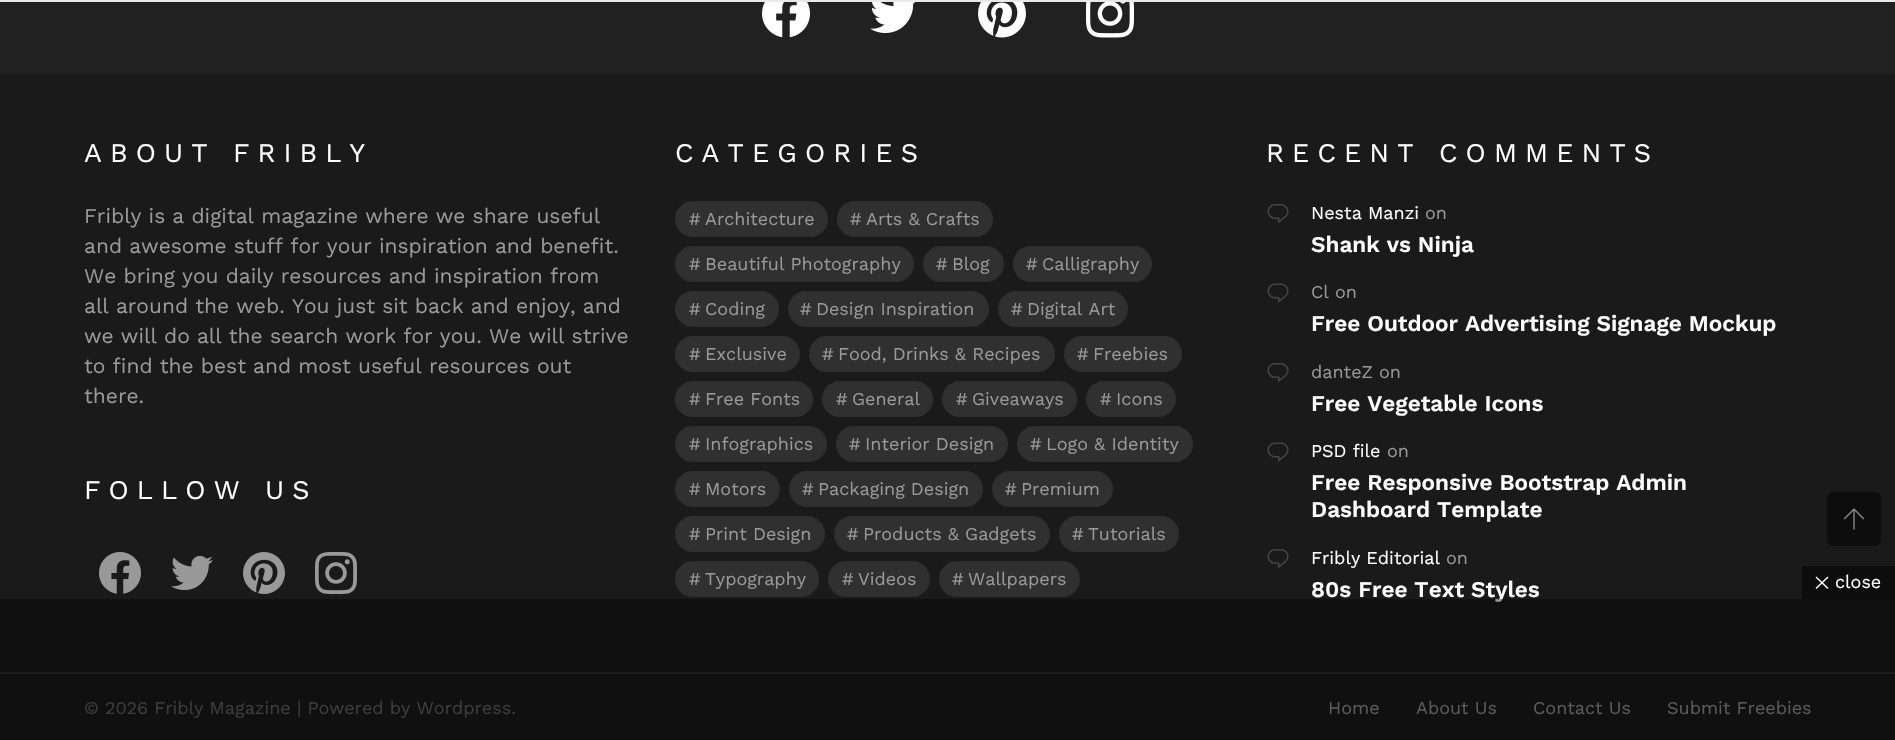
#include "include/core/SkBlurTypes.h"
#include "include/core/SkCanvas.h"
#include "include/core/SkData.h"
#include "include/core/SkFont.h"
#include "include/core/SkFontMgr.h"
#include "include/core/SkImage.h"
#include "include/core/SkMaskFilter.h"
#include "include/core/SkPaint.h"
#include "include/core/SkPathBuilder.h"
#include "include/core/SkTextBlob.h"
#include "include/effects/SkDashPathEffect.h"
#include "include/effects/SkGradientShader.h"
#include "include/utils/SkParsePath.h"

extern sk_sp<SkFontMgr> fontMgr;

void draw(SkCanvas* canvas) {
  SkPaint p;
  p.setAntiAlias(true);
  auto spacedText = [&](const char* s, float x, float y, const SkFont& font, const SkPaint& ink, float letter, float word) {
    std::vector<SkGlyphID> glyphs(font.countText(s, strlen(s), SkTextEncoding::kUTF8));
    std::vector<float> xs(glyphs.size());
    font.textToGlyphs(s, strlen(s), SkTextEncoding::kUTF8, glyphs);
    font.getXPos(glyphs, xs, x);
    float extra = 0;
    for (size_t i = 0; i < glyphs.size(); i++) {
      xs[i] += extra;
      extra += letter + word * (glyphs[i] == font.unicharToGlyph(' '));
    }
    canvas->drawTextBlob(SkTextBlob::MakeFromPosHGlyphs(glyphs, xs, y, font), 0, 0, ink);
  };
  canvas->clear(SkColorSetRGB(33, 33, 33));
  p.setColor(SkColorSetRGB(233, 233, 233));
  canvas->drawRect(SkRect::MakeLTRB(0, 0, 1895, 2), p);
  canvas->drawImageRect(SkImages::DeferredFromEncodedData(SkData::MakeFromFileName("images/1.png")), SkRect::MakeLTRB(762, 2, 810, 38), SkSamplingOptions());
  canvas->drawImageRect(SkImages::DeferredFromEncodedData(SkData::MakeFromFileName("images/2.png")), SkRect::MakeLTRB(870, 2, 915, 33), SkSamplingOptions());
  canvas->drawImageRect(SkImages::DeferredFromEncodedData(SkData::MakeFromFileName("images/3.png")), SkRect::MakeLTRB(978, 2, 1026, 38), SkSamplingOptions());
  canvas->drawImageRect(SkImages::DeferredFromEncodedData(SkData::MakeFromFileName("images/4.png")), SkRect::MakeLTRB(1086, 2, 1134, 38), SkSamplingOptions());
  p.setColor(SkColorSetRGB(26, 26, 26));
  canvas->drawRect(SkRect::MakeLTRB(0, 74, 1895, 672), p);
  canvas->drawImageRect(SkImages::DeferredFromEncodedData(SkData::MakeFromFileName("images/5.png")), SkRect::MakeLTRB(99, 552, 141, 594), SkSamplingOptions());
  canvas->drawImageRect(SkImages::DeferredFromEncodedData(SkData::MakeFromFileName("images/6.png")), SkRect::MakeLTRB(171, 555, 213, 591), SkSamplingOptions());
  canvas->drawImageRect(SkImages::DeferredFromEncodedData(SkData::MakeFromFileName("images/7.png")), SkRect::MakeLTRB(243, 552, 285, 594), SkSamplingOptions());
  canvas->drawImageRect(SkImages::DeferredFromEncodedData(SkData::MakeFromFileName("images/8.png")), SkRect::MakeLTRB(315, 552, 357, 594), SkSamplingOptions());
  canvas->drawImageRect(SkImages::DeferredFromEncodedData(SkData::MakeFromFileName("images/9.png")), SkRect::MakeLTRB(1267, 204, 1289, 224), SkSamplingOptions());
  canvas->drawImageRect(SkImages::DeferredFromEncodedData(SkData::MakeFromFileName("images/10.png")), SkRect::MakeLTRB(1267, 283, 1289, 303), SkSamplingOptions());
  canvas->drawImageRect(SkImages::DeferredFromEncodedData(SkData::MakeFromFileName("images/9.png")), SkRect::MakeLTRB(1267, 363, 1289, 383), SkSamplingOptions());
  canvas->drawImageRect(SkImages::DeferredFromEncodedData(SkData::MakeFromFileName("images/10.png")), SkRect::MakeLTRB(1267, 442, 1289, 462), SkSamplingOptions());
  canvas->drawImageRect(SkImages::DeferredFromEncodedData(SkData::MakeFromFileName("images/9.png")), SkRect::MakeLTRB(1267, 549, 1289, 569), SkSamplingOptions());
  p.setColor(SkColorSetRGB(13, 13, 13));
  canvas->drawRoundRect(SkRect::MakeLTRB(1827, 492, 1881, 546), 6, 6, p);
  canvas->drawImageRect(SkImages::DeferredFromEncodedData(SkData::MakeFromFileName("images/11.png")), SkRect::MakeLTRB(1843, 508, 1865, 530), SkSamplingOptions());
  p.setColor(SkColorSetRGB(47, 47, 47));
  canvas->drawRect(SkRect::MakeLTRB(0, 672, 1895, 674), p);
  p.setColor(SkColorSetRGB(26, 26, 26));
  canvas->drawRect(SkRect::MakeLTRB(0, 674, 1895, 740), p);
  p.setColor(SkColorSetRGB(13, 13, 13));
  canvas->drawRect(SkRect::MakeLTRB(1802, 566, 1895, 599), p);
  p.setColor(SK_ColorWHITE);
  canvas->drawPath(SkPathBuilder().moveTo(1816.5f, 576.5f).lineTo(1828.5f, 588).lineTo(1827.5f, 589).lineTo(1815.5f, 577.5f).close().detach(), p);
  canvas->drawPath(SkPathBuilder().moveTo(1827.5f, 576.5f).lineTo(1828.5f, 577.5f).lineTo(1816.5f, 589).lineTo(1815.5f, 588).close().detach(), p);
  SkFont font1(fontMgr->matchFamilyStyle("Work Sans", SkFontStyle::Normal()), 27);
  font1.setSubpixel(true);
  spacedText("ABOUT FRIBLY", 84, 162, font1, p, 8.1f, 0);
  SkFont font2(fontMgr->matchFamilyStyle("Work Sans", SkFontStyle::Normal()), 21);
  font2.setSubpixel(true);
  p.setColor(SkColorSetRGB(153, 153, 153));
  canvas->drawString("Fribly is a digital magazine where we share useful", 84, 223, font2, p);
  canvas->drawString("and awesome stuff for your inspiration and benefit.", 84, 253, font2, p);
  canvas->drawString("We bring you daily resources and inspiration from", 84, 283, font2, p);
  canvas->drawString("all around the web. You just sit back and enjoy, and", 84, 313, font2, p);
  canvas->drawString("we will do all the search work for you. We will strive", 84, 343, font2, p);
  canvas->drawString("to find the best and most useful resources out", 84, 373, font2, p);
  canvas->drawString("there.", 84, 403, font2, p);
  p.setColor(SK_ColorWHITE);
  spacedText("FOLLOW US", 84, 499, font1, p, 8.1f, 0);
  spacedText("CATEGORIES", 675, 162, font1, p, 8.1f, 0);
  SkFont font3(fontMgr->matchFamilyStyle("Work Sans", SkFontStyle::Normal()), 18);
  font3.setSubpixel(true);
  p.setColor(SkColorSetRGB(153, 153, 153));
  canvas->drawString("#", 689, 225, font3, p);
  canvas->drawString("Architecture", 705, 225, font3, p);
  p.setColor(SkColorSetARGB(43, 153, 153, 153));
  canvas->drawRoundRect(SkRect::MakeLTRB(676, 202, 827, 236), 17, 17, p);
  p.setStyle(SkPaint::kStroke_Style);
  p.setStrokeWidth(2);
  p.setColor(SkColorSetRGB(47, 47, 47));
  canvas->drawRoundRect(SkRect::MakeLTRB(676, 202, 827, 236), 17, 17, p);
  p.setStyle(SkPaint::kFill_Style);
  p.setColor(SkColorSetRGB(153, 153, 153));
  canvas->drawString("#", 850, 225, font3, p);
  canvas->drawString("Arts & Crafts", 866, 225, font3, p);
  p.setColor(SkColorSetARGB(43, 153, 153, 153));
  canvas->drawRoundRect(SkRect::MakeLTRB(838, 202, 992, 236), 17, 17, p);
  p.setStyle(SkPaint::kStroke_Style);
  p.setColor(SkColorSetRGB(47, 47, 47));
  canvas->drawRoundRect(SkRect::MakeLTRB(838, 202, 992, 236), 17, 17, p);
  p.setStyle(SkPaint::kFill_Style);
  p.setColor(SkColorSetRGB(153, 153, 153));
  canvas->drawString("#", 689, 270, font3, p);
  canvas->drawString("Beautiful Photography", 705, 270, font3, p);
  p.setColor(SkColorSetARGB(43, 153, 153, 153));
  canvas->drawRoundRect(SkRect::MakeLTRB(676, 247, 913, 281), 17, 17, p);
  p.setStyle(SkPaint::kStroke_Style);
  p.setColor(SkColorSetRGB(47, 47, 47));
  canvas->drawRoundRect(SkRect::MakeLTRB(676, 247, 913, 281), 17, 17, p);
  p.setStyle(SkPaint::kFill_Style);
  p.setColor(SkColorSetRGB(153, 153, 153));
  canvas->drawString("#", 936, 270, font3, p);
  canvas->drawString("Blog", 952, 270, font3, p);
  p.setColor(SkColorSetARGB(43, 153, 153, 153));
  canvas->drawRoundRect(SkRect::MakeLTRB(924, 247, 1003, 281), 17, 17, p);
  p.setStyle(SkPaint::kStroke_Style);
  p.setColor(SkColorSetRGB(47, 47, 47));
  canvas->drawRoundRect(SkRect::MakeLTRB(924, 247, 1003, 281), 17, 17, p);
  p.setStyle(SkPaint::kFill_Style);
  p.setColor(SkColorSetRGB(153, 153, 153));
  canvas->drawString("#", 1026, 270, font3, p);
  canvas->drawString("Calligraphy", 1042, 270, font3, p);
  p.setColor(SkColorSetARGB(43, 153, 153, 153));
  canvas->drawRoundRect(SkRect::MakeLTRB(1014, 247, 1151, 281), 17, 17, p);
  p.setStyle(SkPaint::kStroke_Style);
  p.setColor(SkColorSetRGB(47, 47, 47));
  canvas->drawRoundRect(SkRect::MakeLTRB(1014, 247, 1151, 281), 17, 17, p);
  p.setStyle(SkPaint::kFill_Style);
  p.setColor(SkColorSetRGB(153, 153, 153));
  canvas->drawString("#", 689, 315, font3, p);
  canvas->drawString("Coding", 705, 315, font3, p);
  p.setColor(SkColorSetARGB(43, 153, 153, 153));
  canvas->drawRoundRect(SkRect::MakeLTRB(676, 292, 778, 326), 17, 17, p);
  p.setStyle(SkPaint::kStroke_Style);
  p.setColor(SkColorSetRGB(47, 47, 47));
  canvas->drawRoundRect(SkRect::MakeLTRB(676, 292, 778, 326), 17, 17, p);
  p.setStyle(SkPaint::kFill_Style);
  p.setColor(SkColorSetRGB(153, 153, 153));
  canvas->drawString("#", 800, 315, font3, p);
  canvas->drawString("Design Inspiration", 816, 315, font3, p);
  p.setColor(SkColorSetARGB(43, 153, 153, 153));
  canvas->drawRoundRect(SkRect::MakeLTRB(789, 292, 988, 326), 17, 17, p);
  p.setStyle(SkPaint::kStroke_Style);
  p.setColor(SkColorSetRGB(47, 47, 47));
  canvas->drawRoundRect(SkRect::MakeLTRB(789, 292, 988, 326), 17, 17, p);
  p.setStyle(SkPaint::kFill_Style);
  p.setColor(SkColorSetRGB(153, 153, 153));
  canvas->drawString("#", 1011, 315, font3, p);
  canvas->drawString("Digital Art", 1027, 315, font3, p);
  p.setColor(SkColorSetARGB(43, 153, 153, 153));
  canvas->drawRoundRect(SkRect::MakeLTRB(999, 292, 1127, 326), 17, 17, p);
  p.setStyle(SkPaint::kStroke_Style);
  p.setColor(SkColorSetRGB(47, 47, 47));
  canvas->drawRoundRect(SkRect::MakeLTRB(999, 292, 1127, 326), 17, 17, p);
  p.setStyle(SkPaint::kFill_Style);
  p.setColor(SkColorSetRGB(153, 153, 153));
  canvas->drawString("#", 689, 360, font3, p);
  canvas->drawString("Exclusive", 705, 360, font3, p);
  p.setColor(SkColorSetARGB(43, 153, 153, 153));
  canvas->drawRoundRect(SkRect::MakeLTRB(676, 337, 799, 371), 17, 17, p);
  p.setStyle(SkPaint::kStroke_Style);
  p.setColor(SkColorSetRGB(47, 47, 47));
  canvas->drawRoundRect(SkRect::MakeLTRB(676, 337, 799, 371), 17, 17, p);
  p.setStyle(SkPaint::kFill_Style);
  p.setColor(SkColorSetRGB(153, 153, 153));
  canvas->drawString("#", 822, 360, font3, p);
  canvas->drawString("Food, Drinks & Recipes", 838, 360, font3, p);
  p.setColor(SkColorSetARGB(43, 153, 153, 153));
  canvas->drawRoundRect(SkRect::MakeLTRB(810, 337, 1054, 371), 17, 17, p);
  p.setStyle(SkPaint::kStroke_Style);
  p.setColor(SkColorSetRGB(47, 47, 47));
  canvas->drawRoundRect(SkRect::MakeLTRB(810, 337, 1054, 371), 17, 17, p);
  p.setStyle(SkPaint::kFill_Style);
  p.setColor(SkColorSetRGB(153, 153, 153));
  canvas->drawString("#", 1077, 360, font3, p);
  canvas->drawString("Freebies", 1093, 360, font3, p);
  p.setColor(SkColorSetARGB(43, 153, 153, 153));
  canvas->drawRoundRect(SkRect::MakeLTRB(1065, 337, 1181, 371), 17, 17, p);
  p.setStyle(SkPaint::kStroke_Style);
  p.setColor(SkColorSetRGB(47, 47, 47));
  canvas->drawRoundRect(SkRect::MakeLTRB(1065, 337, 1181, 371), 17, 17, p);
  p.setStyle(SkPaint::kFill_Style);
  p.setColor(SkColorSetRGB(153, 153, 153));
  canvas->drawString("#", 689, 405, font3, p);
  canvas->drawString("Free Fonts", 705, 405, font3, p);
  p.setColor(SkColorSetARGB(43, 153, 153, 153));
  canvas->drawRoundRect(SkRect::MakeLTRB(676, 382, 812, 416), 17, 17, p);
  p.setStyle(SkPaint::kStroke_Style);
  p.setColor(SkColorSetRGB(47, 47, 47));
  canvas->drawRoundRect(SkRect::MakeLTRB(676, 382, 812, 416), 17, 17, p);
  p.setStyle(SkPaint::kFill_Style);
  p.setColor(SkColorSetRGB(153, 153, 153));
  canvas->drawString("#", 836, 405, font3, p);
  canvas->drawString("General", 852, 405, font3, p);
  p.setColor(SkColorSetARGB(43, 153, 153, 153));
  canvas->drawRoundRect(SkRect::MakeLTRB(823, 382, 932, 416), 17, 17, p);
  p.setStyle(SkPaint::kStroke_Style);
  p.setColor(SkColorSetRGB(47, 47, 47));
  canvas->drawRoundRect(SkRect::MakeLTRB(823, 382, 932, 416), 17, 17, p);
  p.setStyle(SkPaint::kFill_Style);
  p.setColor(SkColorSetRGB(153, 153, 153));
  canvas->drawString("#", 956, 405, font3, p);
  canvas->drawString("Giveaways", 972, 405, font3, p);
  p.setColor(SkColorSetARGB(43, 153, 153, 153));
  canvas->drawRoundRect(SkRect::MakeLTRB(943, 382, 1076, 416), 17, 17, p);
  p.setStyle(SkPaint::kStroke_Style);
  p.setColor(SkColorSetRGB(47, 47, 47));
  canvas->drawRoundRect(SkRect::MakeLTRB(943, 382, 1076, 416), 17, 17, p);
  p.setStyle(SkPaint::kFill_Style);
  p.setColor(SkColorSetRGB(153, 153, 153));
  canvas->drawString("#", 1100, 405, font3, p);
  canvas->drawString("Icons", 1116, 405, font3, p);
  p.setColor(SkColorSetARGB(43, 153, 153, 153));
  canvas->drawRoundRect(SkRect::MakeLTRB(1087, 382, 1175, 416), 17, 17, p);
  p.setStyle(SkPaint::kStroke_Style);
  p.setColor(SkColorSetRGB(47, 47, 47));
  canvas->drawRoundRect(SkRect::MakeLTRB(1087, 382, 1175, 416), 17, 17, p);
  p.setStyle(SkPaint::kFill_Style);
  p.setColor(SkColorSetRGB(153, 153, 153));
  canvas->drawString("#", 689, 450, font3, p);
  canvas->drawString("Infographics", 705, 450, font3, p);
  p.setColor(SkColorSetARGB(43, 153, 153, 153));
  canvas->drawRoundRect(SkRect::MakeLTRB(676, 427, 826, 461), 17, 17, p);
  p.setStyle(SkPaint::kStroke_Style);
  p.setColor(SkColorSetRGB(47, 47, 47));
  canvas->drawRoundRect(SkRect::MakeLTRB(676, 427, 826, 461), 17, 17, p);
  p.setStyle(SkPaint::kFill_Style);
  p.setColor(SkColorSetRGB(153, 153, 153));
  canvas->drawString("#", 849, 450, font3, p);
  canvas->drawString("Interior Design", 865, 450, font3, p);
  p.setColor(SkColorSetARGB(43, 153, 153, 153));
  canvas->drawRoundRect(SkRect::MakeLTRB(837, 427, 1007, 461), 17, 17, p);
  p.setStyle(SkPaint::kStroke_Style);
  p.setColor(SkColorSetRGB(47, 47, 47));
  canvas->drawRoundRect(SkRect::MakeLTRB(837, 427, 1007, 461), 17, 17, p);
  p.setStyle(SkPaint::kFill_Style);
  p.setColor(SkColorSetRGB(153, 153, 153));
  canvas->drawString("#", 1030, 450, font3, p);
  canvas->drawString("Logo & Identity", 1046, 450, font3, p);
  p.setColor(SkColorSetARGB(43, 153, 153, 153));
  canvas->drawRoundRect(SkRect::MakeLTRB(1018, 427, 1192, 461), 17, 17, p);
  p.setStyle(SkPaint::kStroke_Style);
  p.setColor(SkColorSetRGB(47, 47, 47));
  canvas->drawRoundRect(SkRect::MakeLTRB(1018, 427, 1192, 461), 17, 17, p);
  p.setStyle(SkPaint::kFill_Style);
  p.setColor(SkColorSetRGB(153, 153, 153));
  canvas->drawString("#", 689, 495, font3, p);
  canvas->drawString("Motors", 705, 495, font3, p);
  p.setColor(SkColorSetARGB(43, 153, 153, 153));
  canvas->drawRoundRect(SkRect::MakeLTRB(676, 472, 779, 506), 17, 17, p);
  p.setStyle(SkPaint::kStroke_Style);
  p.setColor(SkColorSetRGB(47, 47, 47));
  canvas->drawRoundRect(SkRect::MakeLTRB(676, 472, 779, 506), 17, 17, p);
  p.setStyle(SkPaint::kFill_Style);
  p.setColor(SkColorSetRGB(153, 153, 153));
  canvas->drawString("#", 802, 495, font3, p);
  canvas->drawString("Packaging Design", 818, 495, font3, p);
  p.setColor(SkColorSetARGB(43, 153, 153, 153));
  canvas->drawRoundRect(SkRect::MakeLTRB(790, 472, 982, 506), 17, 17, p);
  p.setStyle(SkPaint::kStroke_Style);
  p.setColor(SkColorSetRGB(47, 47, 47));
  canvas->drawRoundRect(SkRect::MakeLTRB(790, 472, 982, 506), 17, 17, p);
  p.setStyle(SkPaint::kFill_Style);
  p.setColor(SkColorSetRGB(153, 153, 153));
  canvas->drawString("#", 1005, 495, font3, p);
  canvas->drawString("Premium", 1021, 495, font3, p);
  p.setColor(SkColorSetARGB(43, 153, 153, 153));
  canvas->drawRoundRect(SkRect::MakeLTRB(993, 472, 1112, 506), 17, 17, p);
  p.setStyle(SkPaint::kStroke_Style);
  p.setColor(SkColorSetRGB(47, 47, 47));
  canvas->drawRoundRect(SkRect::MakeLTRB(993, 472, 1112, 506), 17, 17, p);
  p.setStyle(SkPaint::kFill_Style);
  p.setColor(SkColorSetRGB(153, 153, 153));
  canvas->drawString("#", 689, 540, font3, p);
  canvas->drawString("Print Design", 705, 540, font3, p);
  p.setColor(SkColorSetARGB(43, 153, 153, 153));
  canvas->drawRoundRect(SkRect::MakeLTRB(676, 517, 824, 551), 17, 17, p);
  p.setStyle(SkPaint::kStroke_Style);
  p.setColor(SkColorSetRGB(47, 47, 47));
  canvas->drawRoundRect(SkRect::MakeLTRB(676, 517, 824, 551), 17, 17, p);
  p.setStyle(SkPaint::kFill_Style);
  p.setColor(SkColorSetRGB(153, 153, 153));
  canvas->drawString("#", 847, 540, font3, p);
  canvas->drawString("Products & Gadgets", 863, 540, font3, p);
  p.setColor(SkColorSetARGB(43, 153, 153, 153));
  canvas->drawRoundRect(SkRect::MakeLTRB(835, 517, 1049, 551), 17, 17, p);
  p.setStyle(SkPaint::kStroke_Style);
  p.setColor(SkColorSetRGB(47, 47, 47));
  canvas->drawRoundRect(SkRect::MakeLTRB(835, 517, 1049, 551), 17, 17, p);
  p.setStyle(SkPaint::kFill_Style);
  p.setColor(SkColorSetRGB(153, 153, 153));
  canvas->drawString("#", 1072, 540, font3, p);
  canvas->drawString("Tutorials", 1088, 540, font3, p);
  p.setColor(SkColorSetARGB(43, 153, 153, 153));
  canvas->drawRoundRect(SkRect::MakeLTRB(1060, 517, 1178, 551), 17, 17, p);
  p.setStyle(SkPaint::kStroke_Style);
  p.setColor(SkColorSetRGB(47, 47, 47));
  canvas->drawRoundRect(SkRect::MakeLTRB(1060, 517, 1178, 551), 17, 17, p);
  p.setStyle(SkPaint::kFill_Style);
  p.setColor(SkColorSetRGB(153, 153, 153));
  canvas->drawString("#", 689, 585, font3, p);
  canvas->drawString("Typography", 705, 585, font3, p);
  p.setColor(SkColorSetARGB(43, 153, 153, 153));
  canvas->drawRoundRect(SkRect::MakeLTRB(676, 562, 818, 596), 17, 17, p);
  p.setStyle(SkPaint::kStroke_Style);
  p.setColor(SkColorSetRGB(47, 47, 47));
  canvas->drawRoundRect(SkRect::MakeLTRB(676, 562, 818, 596), 17, 17, p);
  p.setStyle(SkPaint::kFill_Style);
  p.setColor(SkColorSetRGB(153, 153, 153));
  canvas->drawString("#", 842, 585, font3, p);
  canvas->drawString("Videos", 858, 585, font3, p);
  p.setColor(SkColorSetARGB(43, 153, 153, 153));
  canvas->drawRoundRect(SkRect::MakeLTRB(829, 562, 929, 596), 17, 17, p);
  p.setStyle(SkPaint::kStroke_Style);
  p.setColor(SkColorSetRGB(47, 47, 47));
  canvas->drawRoundRect(SkRect::MakeLTRB(829, 562, 929, 596), 17, 17, p);
  p.setStyle(SkPaint::kFill_Style);
  p.setColor(SkColorSetRGB(153, 153, 153));
  canvas->drawString("#", 952, 585, font3, p);
  canvas->drawString("Wallpapers", 968, 585, font3, p);
  p.setColor(SkColorSetARGB(43, 153, 153, 153));
  canvas->drawRoundRect(SkRect::MakeLTRB(940, 562, 1079, 596), 17, 17, p);
  p.setStyle(SkPaint::kStroke_Style);
  p.setColor(SkColorSetRGB(47, 47, 47));
  canvas->drawRoundRect(SkRect::MakeLTRB(940, 562, 1079, 596), 17, 17, p);
  p.setStyle(SkPaint::kFill_Style);
  p.setColor(SK_ColorWHITE);
  spacedText("RECENT COMMENTS", 1266, 162, font1, p, 8.1f, 0);
  canvas->drawString("Nesta Manzi", 1311, 219, font3, p);
  p.setColor(SkColorSetRGB(153, 153, 153));
  canvas->drawString("on", 1425, 219, font3, p);
  SkFont font4(fontMgr->matchFamilyStyle("Work Sans", SkFontStyle(600, SkFontStyle::kNormal_Width, SkFontStyle::kUpright_Slant)), 22.5f);
  font4.setSubpixel(true);
  p.setColor(SK_ColorWHITE);
  canvas->drawString("Shank vs Ninja", 1311, 252, font4, p);
  p.setColor(SkColorSetRGB(153, 153, 153));
  canvas->drawString("Cl on", 1311, 298, font3, p);
  p.setColor(SK_ColorWHITE);
  canvas->drawString("Free Outdoor Advertising Signage Mockup", 1311, 331, font4, p);
  p.setColor(SkColorSetRGB(153, 153, 153));
  canvas->drawString("danteZ on", 1311, 378, font3, p);
  p.setColor(SK_ColorWHITE);
  canvas->drawString("Free Vegetable Icons", 1311, 411, font4, p);
  canvas->drawString("PSD file", 1311, 457, font3, p);
  p.setColor(SkColorSetRGB(153, 153, 153));
  canvas->drawString("on", 1387, 457, font3, p);
  p.setColor(SK_ColorWHITE);
  canvas->drawString("Free Responsive Bootstrap Admin", 1311, 490, font4, p);
  canvas->drawString("Dashboard Template", 1311, 517, font4, p);
  canvas->drawString("Fribly Editorial", 1311, 564, font3, p);
  p.setColor(SkColorSetRGB(153, 153, 153));
  canvas->drawString("on", 1446, 564, font3, p);
  p.setColor(SK_ColorWHITE);
  canvas->drawString("80s Free Text Styles", 1311, 597, font4, p);
  p.setColor(SkColorSetRGB(102, 102, 102));
  canvas->drawString("© 2026 Fribly Magazine | Powered by Wordpress.", 84, 714, font3, p);
  p.setColor(SkColorSetRGB(153, 153, 153));
  canvas->drawString("Home", 1328, 714, font3, p);
  canvas->drawString("About Us", 1416, 714, font3, p);
  canvas->drawString("Contact Us", 1533, 714, font3, p);
  canvas->drawString("Submit Freebies", 1667, 714, font3, p);
  p.setColor(SkColorSetARGB(102, 0, 0, 0));
  canvas->drawRect(SkRect::MakeLTRB(0, 599, 1895, 740), p);
  p.setColor(SK_ColorWHITE);
  canvas->drawString("close", 1835, 588, font3, p);
}
